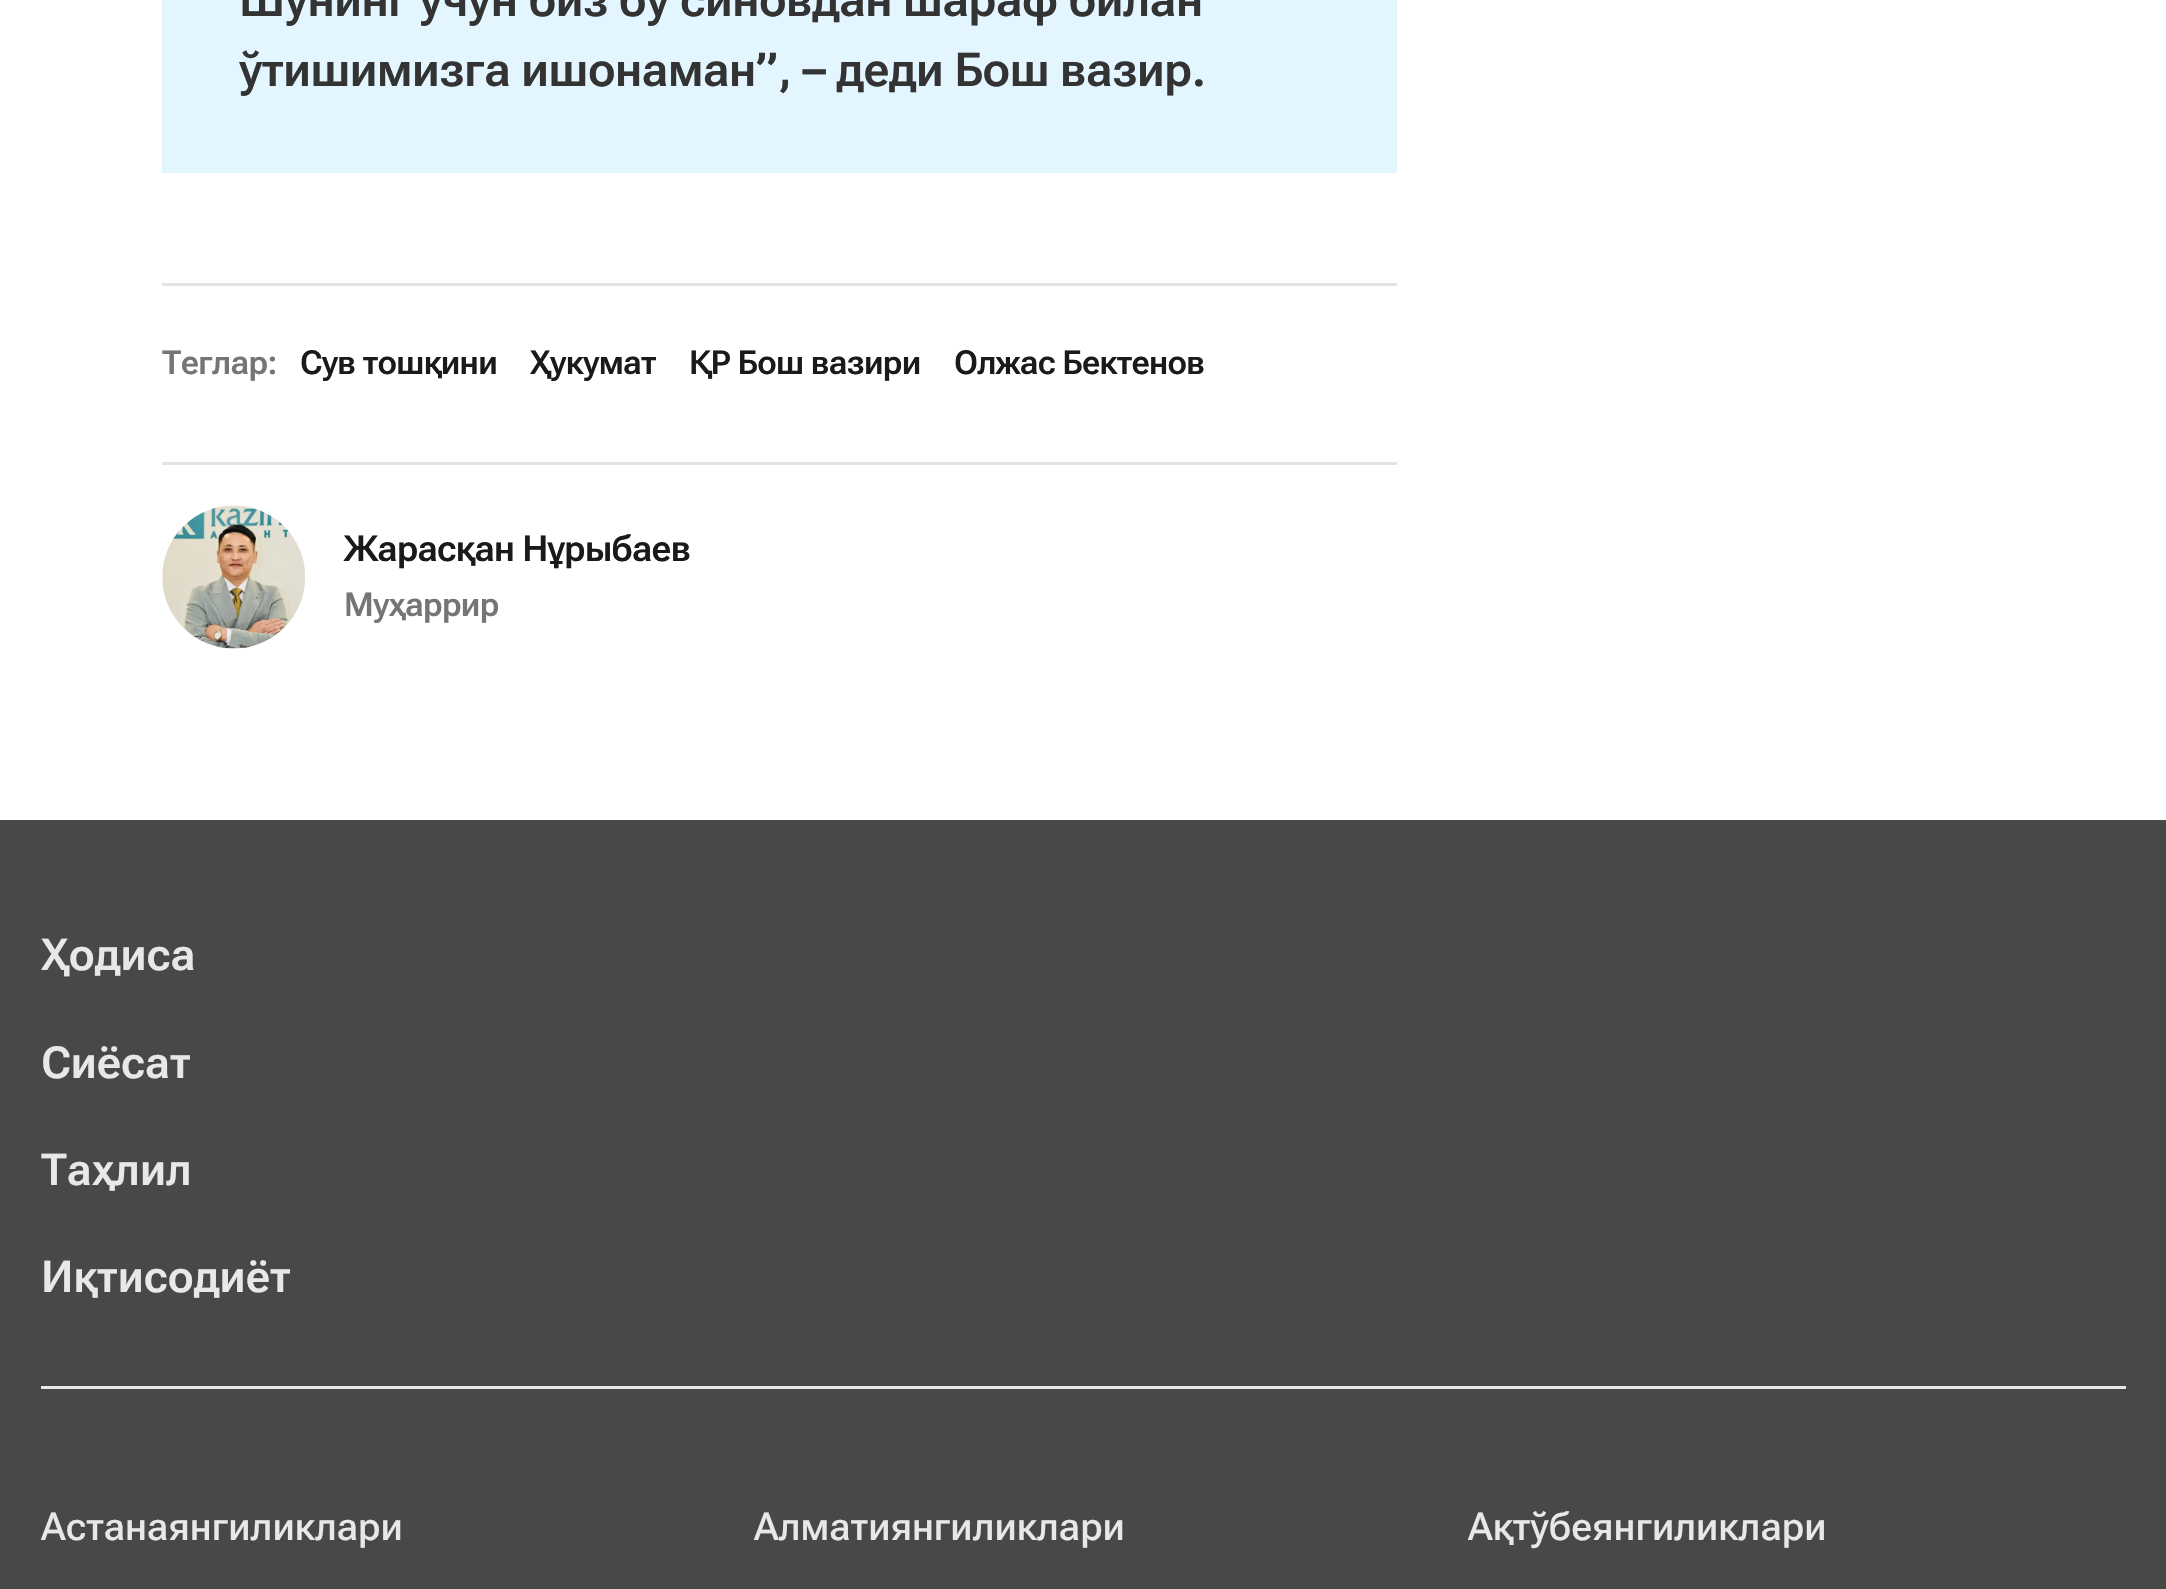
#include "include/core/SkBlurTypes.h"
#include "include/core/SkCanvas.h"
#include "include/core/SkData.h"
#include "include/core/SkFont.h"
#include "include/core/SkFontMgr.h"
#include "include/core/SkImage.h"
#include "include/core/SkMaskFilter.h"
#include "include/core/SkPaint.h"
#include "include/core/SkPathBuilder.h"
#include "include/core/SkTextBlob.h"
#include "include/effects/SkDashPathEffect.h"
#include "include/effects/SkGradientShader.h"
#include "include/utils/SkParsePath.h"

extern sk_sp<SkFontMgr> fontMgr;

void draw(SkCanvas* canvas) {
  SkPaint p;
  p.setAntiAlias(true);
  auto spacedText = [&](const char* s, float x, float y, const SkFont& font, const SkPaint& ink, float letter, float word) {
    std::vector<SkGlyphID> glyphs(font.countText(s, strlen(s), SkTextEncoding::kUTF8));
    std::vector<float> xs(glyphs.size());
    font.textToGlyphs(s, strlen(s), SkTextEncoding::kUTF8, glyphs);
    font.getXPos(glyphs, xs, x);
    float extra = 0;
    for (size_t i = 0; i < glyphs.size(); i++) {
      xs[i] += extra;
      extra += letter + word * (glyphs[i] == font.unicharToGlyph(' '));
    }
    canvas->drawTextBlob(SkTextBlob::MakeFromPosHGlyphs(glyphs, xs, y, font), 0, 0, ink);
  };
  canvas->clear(SK_ColorWHITE);
  p.setColor(SkColorSetRGB(228, 228, 228));
  canvas->drawRect(SkRect::MakeLTRB(162, 283, 1397, 286), p);
  p.setColor(SkColorSetRGB(227, 245, 255));
  canvas->drawRect(SkRect::MakeLTRB(162, 0, 1397, 173), p);
  p.setColor(SkColorSetRGB(228, 228, 228));
  canvas->drawRect(SkRect::MakeLTRB(162, 462, 1397, 465), p);
  canvas->drawImageRect(SkImages::DeferredFromEncodedData(SkData::MakeFromFileName("images/1.png")), SkRect::MakeLTRB(162, 505, 305, 649), SkSamplingOptions());
  p.setColor(SkColorSetRGB(72, 72, 71));
  canvas->drawRect(SkRect::MakeLTRB(0, 820, 2166, 1589), p);
  p.setColor(SkColorSetRGB(232, 232, 232));
  canvas->drawRect(SkRect::MakeLTRB(41, 1386, 2126, 1389), p);
  SkFont font1(fontMgr->matchFamilyStyle("Roboto Flex", SkFontStyle(600, SkFontStyle::kNormal_Width, SkFontStyle::kUpright_Slant)), 46.75f);
  font1.setSubpixel(true);
  p.setColor(SkColorSetRGB(51, 51, 51));
  spacedText("Шунинг учун биз бу синовдан шараф билан", 239, 16, font1, p, -0.45f, 0);
  spacedText("ўтишимизга ишонаман”, – деди Бош вазир.", 239, 86, font1, p, -0.45f, 0);
  SkFont font2(fontMgr->matchFamilyStyle("Roboto Flex", SkFontStyle(600, SkFontStyle::kNormal_Width, SkFontStyle::kUpright_Slant)), 33);
  font2.setSubpixel(true);
  p.setColor(SkColorSetRGB(117, 117, 117));
  spacedText("Теглар:", 162, 374, font2, p, -0.7f, 0);
  p.setColor(SkColorSetRGB(26, 26, 26));
  spacedText("Сув тошқини", 300, 374, font2, p, -0.7f, 0);
  spacedText("Ҳукумат", 530, 374, font2, p, -0.7f, 0);
  spacedText("ҚР Бош вазири", 689, 374, font2, p, -0.7f, 0);
  spacedText("Олжас Бектенов", 954, 374, font2, p, -0.7f, 0);
  SkFont font3(fontMgr->matchFamilyStyle("Roboto Flex", SkFontStyle(600, SkFontStyle::kNormal_Width, SkFontStyle::kUpright_Slant)), 35.75f);
  font3.setSubpixel(true);
  spacedText("Жарасқан Нұрыбаев", 344, 561, font3, p, -0.7f, 0);
  p.setColor(SkColorSetRGB(117, 117, 117));
  spacedText("Муҳаррир", 344, 616, font2, p, -0.7f, 0);
  SkFont font4(fontMgr->matchFamilyStyle("Roboto Flex", SkFontStyle(600, SkFontStyle::kNormal_Width, SkFontStyle::kUpright_Slant)), 44);
  font4.setSubpixel(true);
  p.setColor(SkColorSetRGB(232, 232, 232));
  canvas->drawString("Ҳодиса", 41, 970, font4, p);
  canvas->drawString("Сиёсат", 41, 1078, font4, p);
  canvas->drawString("Таҳлил", 41, 1185, font4, p);
  canvas->drawString("Иқтисодиёт", 41, 1292, font4, p);
  SkFont font5(fontMgr->matchFamilyStyle("Roboto Flex", SkFontStyle(500, SkFontStyle::kNormal_Width, SkFontStyle::kUpright_Slant)), 38.5f);
  font5.setSubpixel(true);
  canvas->drawString("Астана янгиликлари", 41, 1540, font5, p);
  canvas->drawString("Алмати янгиликлари", 754, 1540, font5, p);
  canvas->drawString("Ақтўбе янгиликлари", 1468, 1540, font5, p);
}
